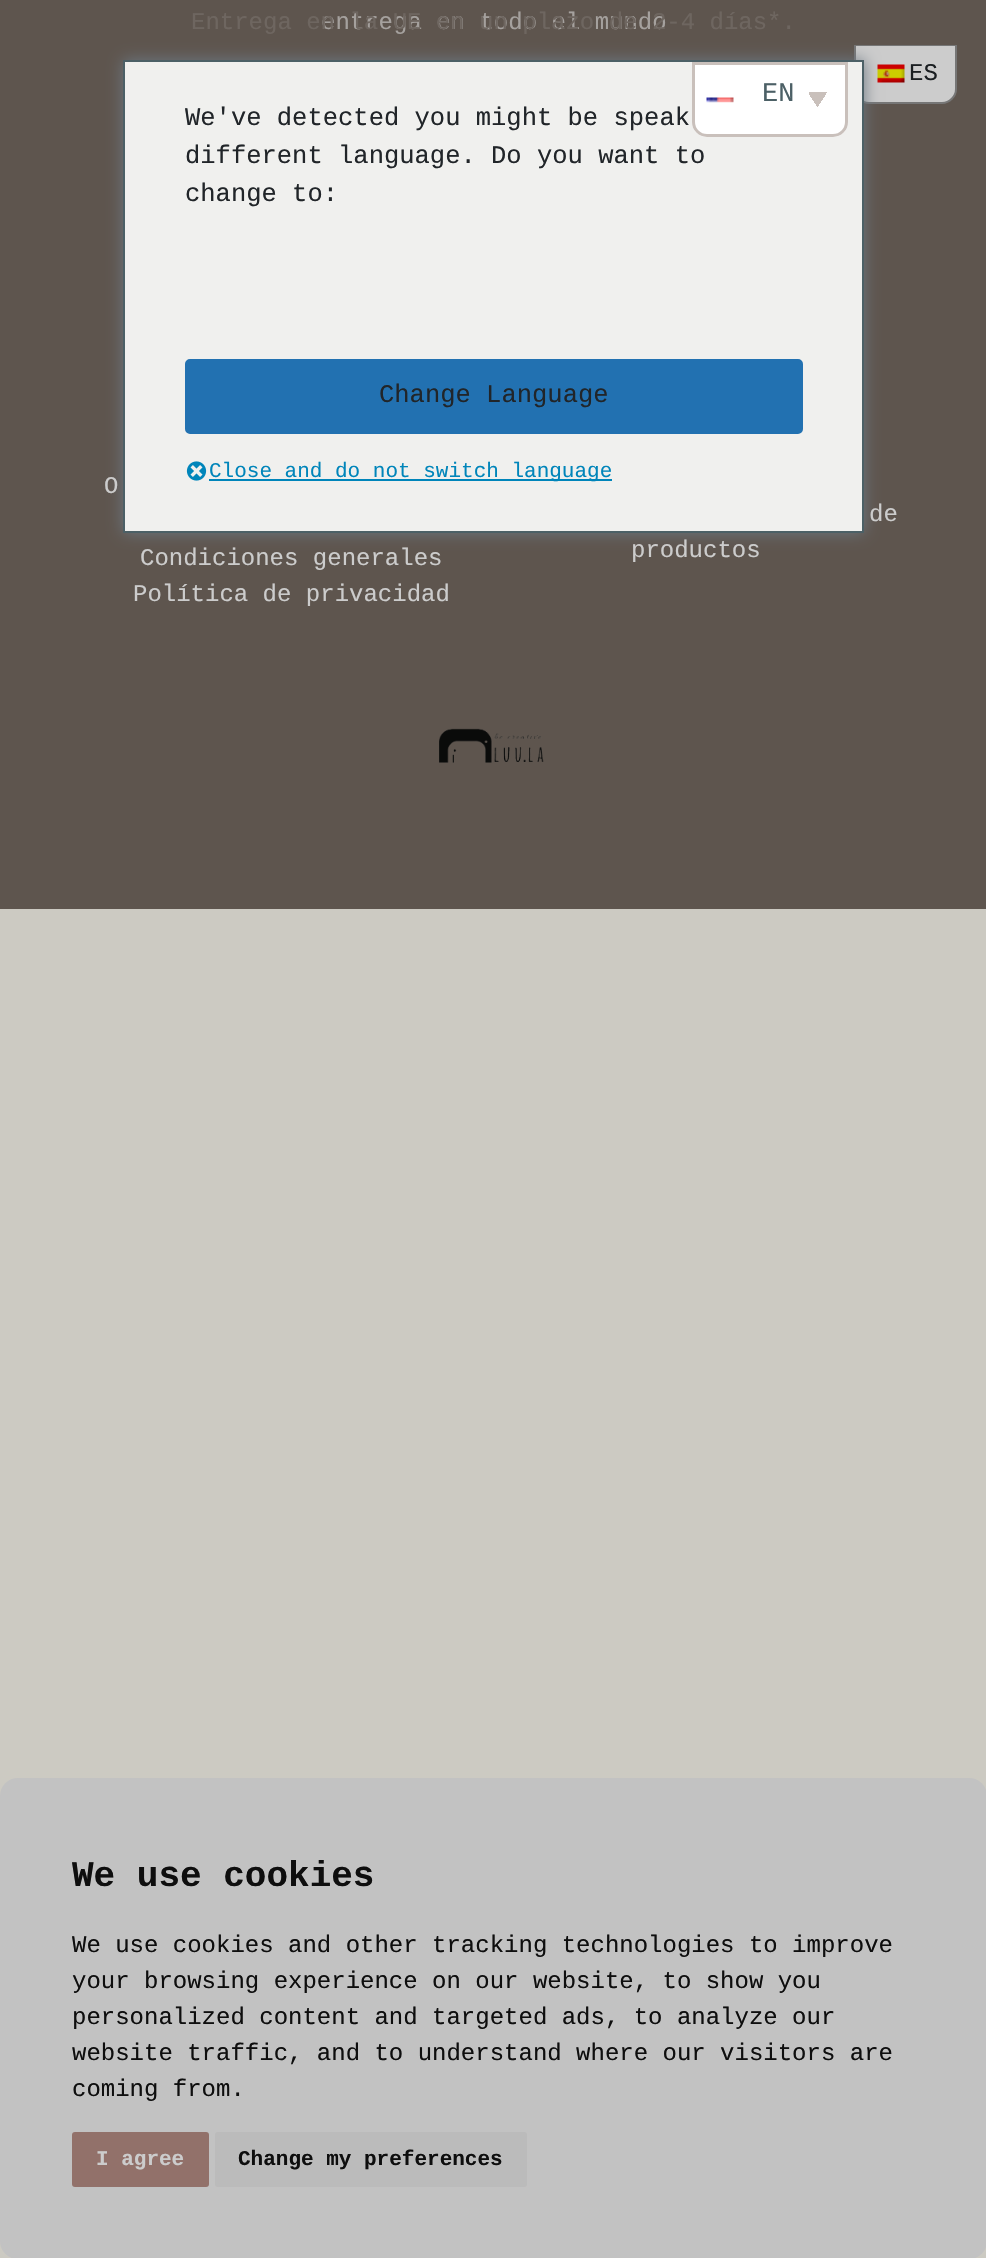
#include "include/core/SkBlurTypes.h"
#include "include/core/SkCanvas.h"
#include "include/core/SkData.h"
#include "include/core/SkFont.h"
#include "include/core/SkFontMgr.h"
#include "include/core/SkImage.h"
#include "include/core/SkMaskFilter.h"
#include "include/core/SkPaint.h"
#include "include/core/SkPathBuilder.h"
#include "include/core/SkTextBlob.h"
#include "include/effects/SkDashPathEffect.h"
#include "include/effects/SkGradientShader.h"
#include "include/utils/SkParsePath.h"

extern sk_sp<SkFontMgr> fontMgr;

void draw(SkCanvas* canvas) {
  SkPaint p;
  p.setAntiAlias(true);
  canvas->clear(SkColorSetRGB(204, 202, 194));
  p.setColor(SkColorSetRGB(94, 85, 78));
  canvas->drawRect(SkRect::MakeLTRB(0, 45, 986, 909), p);
  p.setColor(SkColorSetRGB(204, 204, 204));
  canvas->drawPath(SkPathBuilder().moveTo(855, 45).lineTo(956, 45).lineTo(956, 89).cubicTo(956, 96.5f, 949.5f, 103, 942, 103).lineTo(869, 103).cubicTo(861.5f, 103, 855, 96.5f, 855, 89).close().detach(), p);
  p.setStyle(SkPaint::kStroke_Style);
  p.setStrokeWidth(2);
  p.setColor(SkColorSetRGB(118, 118, 118));
  canvas->drawPath(SkPathBuilder().moveTo(855, 45).lineTo(956, 45).lineTo(956, 89).cubicTo(956, 96.5f, 949.5f, 103, 942, 103).lineTo(869, 103).cubicTo(861.5f, 103, 855, 96.5f, 855, 89).close().detach(), p);
  p.setStyle(SkPaint::kFill_Style);
  p.setColor(SkColorSetRGB(94, 85, 78));
  canvas->drawRect(SkRect::MakeLTRB(0, 0, 986, 45), p);
  canvas->drawImageRect(SkImages::DeferredFromEncodedData(SkData::MakeFromFileName("images/1.png")), SkRect::MakeLTRB(877, 64, 905, 83), SkSamplingOptions());
  p.setColor(SkColorSetRGB(108, 119, 129));
  p.setMaskFilter(SkMaskFilter::MakeBlur(kNormal_SkBlurStyle, 7.5f));
  canvas->drawRect(SkRect::MakeLTRB(123, 60, 864, 533), p);
  p.setMaskFilter(nullptr);
  p.setColor(SkColorSetRGB(240, 240, 238));
  canvas->drawRect(SkRect::MakeLTRB(124, 61, 863, 532), p);
  p.setStyle(SkPaint::kStroke_Style);
  p.setColor(SkColorSetRGB(76, 96, 102));
  canvas->drawRect(SkRect::MakeLTRB(124, 61, 863, 532), p);
  p.setStyle(SkPaint::kFill_Style);
  p.setColor(SK_ColorWHITE);
  canvas->drawPath(SkPathBuilder().moveTo(692, 62).lineTo(848, 62).lineTo(848, 122).cubicTo(848, 130.5f, 841.5f, 137, 833, 137).lineTo(707, 137).cubicTo(698.5f, 137, 692, 130.5f, 692, 122).close().detach(), p);
  {
    const SkColor colors[] = {SkColorSetRGB(201, 192, 187), SK_ColorWHITE};
    const float stops[] = {0.5f, 0.5f};
    const SkPoint ends[] = {{815, 96}, {829, 105}};
    p.setShader(SkGradientShader::MakeLinear(ends, colors, stops, 2, SkTileMode::kClamp));
    p.setAlpha(255);
  }
  canvas->drawRect(SkRect::MakeLTRB(818, 92, 827, 106), p);
  {
    const SkColor colors[] = {SK_ColorWHITE, SkColorSetRGB(201, 192, 187)};
    const float stops[] = {0.5f, 0.5f};
    const SkPoint ends[] = {{806, 105}, {820, 96}};
    p.setShader(SkGradientShader::MakeLinear(ends, colors, stops, 2, SkTileMode::kClamp));
    p.setAlpha(255);
  }
  canvas->drawRect(SkRect::MakeLTRB(809, 92, 818, 107), p);
  p.setStyle(SkPaint::kStroke_Style);
  p.setStrokeWidth(3);
  p.setShader(nullptr);
  p.setColor(SkColorSetRGB(201, 192, 187));
  canvas->drawPath(SkPathBuilder().moveTo(693.5f, 63.5f).lineTo(846.5f, 63.5f).lineTo(846.5f, 122).cubicTo(846.5f, 129.5f, 840.5f, 135.5f, 833, 135.5f).lineTo(707, 135.5f).cubicTo(699.5f, 135.5f, 693.5f, 129.5f, 693.5f, 122).close().detach(), p);
  canvas->drawImageRect(SkImages::DeferredFromEncodedData(SkData::MakeFromFileName("images/2.png")), SkRect::MakeLTRB(706, 97, 734, 103), SkSamplingOptions());
  p.setStyle(SkPaint::kFill_Style);
  p.setColor(SkColorSetRGB(34, 113, 177));
  canvas->drawRoundRect(SkRect::MakeLTRB(186, 360, 802, 433), 4, 4, p);
  p.setStyle(SkPaint::kStroke_Style);
  p.setStrokeWidth(2);
  canvas->drawRoundRect(SkRect::MakeLTRB(186, 360, 802, 433), 4, 4, p);
  canvas->drawImageRect(SkImages::DeferredFromEncodedData(SkData::MakeFromFileName("images/3.png")), SkRect::MakeLTRB(186, 461, 207, 481), SkSamplingOptions());
  p.setStyle(SkPaint::kFill_Style);
  p.setColor(SkColorSetRGB(0, 133, 186));
  canvas->drawRect(SkRect::MakeLTRB(209, 479, 612, 481), p);
  canvas->drawImageRect(SkImages::DeferredFromEncodedData(SkData::MakeFromFileName("images/4.png")), SkRect::MakeLTRB(439, 728, 544, 763), SkSamplingOptions());
  p.setColor(SkColorSetRGB(194, 194, 194));
  canvas->drawRoundRect(SkRect::MakeLTRB(0, 1778, 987, 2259), 18, 18, p);
  p.setColor(SkColorSetRGB(146, 113, 106));
  canvas->drawRoundRect(SkRect::MakeLTRB(72, 2132, 209, 2187), 3, 3, p);
  p.setColor(SkColorSetRGB(187, 187, 187));
  canvas->drawRoundRect(SkRect::MakeLTRB(215, 2132, 527, 2187), 3, 3, p);
  SkFont font1(fontMgr->matchFamilyStyle("Liberation Mono", SkFontStyle::Normal()), 24);
  font1.setSubpixel(true);
  p.setColor(SkColorSetRGB(165, 161, 158));
  canvas->drawString("entrega en todo el mundo", 321, 29, font1, p);
  p.setColor(SkColorSetRGB(110, 102, 96));
  canvas->drawString("Entrega en la UE en un plazo de 2-4 días*.", 191, 29, font1, p);
  p.setColor(SkColorSetRGB(26, 30, 33));
  canvas->drawString("ES", 909, 80, font1, p);
  SkFont font2(fontMgr->matchFamilyStyle("Liberation Mono", SkFontStyle::Normal()), 27);
  font2.setSubpixel(true);
  p.setColor(SkColorSetRGB(76, 96, 102));
  canvas->drawString("EN", 762, 101, font2, p);
  SkFont font3(fontMgr->matchFamilyStyle("Liberation Mono", SkFontStyle::Normal()), 25.5f);
  font3.setSubpixel(true);
  p.setColor(SkColorSetRGB(33, 37, 41));
  canvas->drawString("Change Language", 379, 402, font3, p);
  canvas->drawString("We've detected you might be speak", 185, 125, font3, p);
  canvas->drawString("different language. Do you want to", 185, 163, font3, p);
  canvas->drawString("change to:", 185, 201, font3, p);
  SkFont font4(fontMgr->matchFamilyStyle("Liberation Mono", SkFontStyle::Normal()), 21);
  font4.setSubpixel(true);
  p.setColor(SkColorSetRGB(0, 133, 186));
  canvas->drawString("Close and do not switch language", 209, 477, font4, p);
  p.setColor(SkColorSetRGB(204, 204, 204));
  canvas->drawString("O", 104, 493, font1, p);
  canvas->drawString("Condiciones generales", 140, 565, font1, p);
  canvas->drawString("Política de privacidad", 133, 601, font1, p);
  canvas->drawString("de", 869, 521, font1, p);
  canvas->drawString("productos", 631, 557, font1, p);
  SkFont font5(fontMgr->matchFamilyStyle("Liberation Mono", SkFontStyle::Bold()), 36);
  font5.setSubpixel(true);
  p.setColor(SkColorSetRGB(14, 14, 14));
  canvas->drawString("We use cookies", 72, 1886, font5, p);
  canvas->drawString("We use cookies and other tracking technologies to improve", 72, 1952, font1, p);
  canvas->drawString("your browsing experience on our website, to show you", 72, 1988, font1, p);
  canvas->drawString("personalized content and targeted ads, to analyze our", 72, 2024, font1, p);
  canvas->drawString("website traffic, and to understand where our visitors are", 72, 2060, font1, p);
  canvas->drawString("coming from.", 72, 2096, font1, p);
  SkFont font6(fontMgr->matchFamilyStyle("Liberation Mono", SkFontStyle::Bold()), 21);
  font6.setSubpixel(true);
  p.setColor(SkColorSetRGB(204, 204, 204));
  canvas->drawString("I agree", 96, 2165, font6, p);
  p.setColor(SkColorSetRGB(14, 14, 14));
  canvas->drawString("Change my preferences", 238, 2165, font6, p);
}
